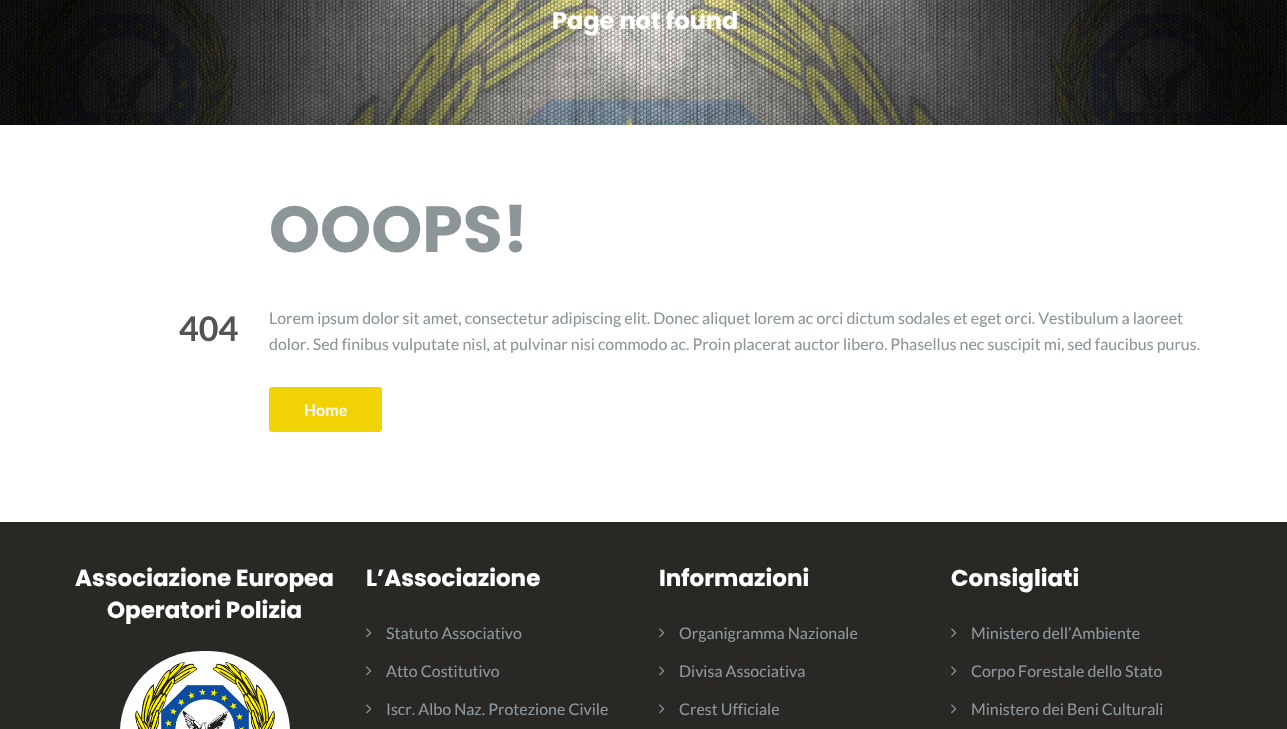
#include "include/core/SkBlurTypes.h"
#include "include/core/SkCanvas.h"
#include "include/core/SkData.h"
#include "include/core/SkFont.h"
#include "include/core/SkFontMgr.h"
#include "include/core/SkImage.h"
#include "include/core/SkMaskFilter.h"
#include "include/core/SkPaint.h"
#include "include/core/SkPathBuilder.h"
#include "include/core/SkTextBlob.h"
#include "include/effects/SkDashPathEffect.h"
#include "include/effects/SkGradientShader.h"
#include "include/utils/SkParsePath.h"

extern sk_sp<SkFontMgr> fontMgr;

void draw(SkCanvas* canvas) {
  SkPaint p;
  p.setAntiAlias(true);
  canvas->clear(SK_ColorWHITE);
  canvas->drawImageRect(SkImages::DeferredFromEncodedData(SkData::MakeFromFileName("images/1.png")), SkRect::MakeLTRB(0, 0, 1287, 125), SkSamplingOptions());
  p.setColor(SkColorSetRGB(241, 210, 4));
  canvas->drawRoundRect(SkRect::MakeLTRB(269, 387, 382, 432), 3, 3, p);
  p.setColor(SkColorSetRGB(41, 40, 37));
  canvas->drawRect(SkRect::MakeLTRB(0, 522, 1287, 729), p);
  p.setColor(SK_ColorWHITE);
  canvas->drawRoundRect(SkRect::MakeLTRB(120, 651, 290, 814), 85, 85, p);
  canvas->drawImageRect(SkImages::DeferredFromEncodedData(SkData::MakeFromFileName("images/2.png")), SkRect::MakeLTRB(135, 661, 275, 729), SkSamplingOptions());
  canvas->drawImageRect(SkImages::DeferredFromEncodedData(SkData::MakeFromFileName("images/3.png")), SkRect::MakeLTRB(366, 628, 372, 638), SkSamplingOptions());
  canvas->drawImageRect(SkImages::DeferredFromEncodedData(SkData::MakeFromFileName("images/3.png")), SkRect::MakeLTRB(366, 666, 372, 676), SkSamplingOptions());
  canvas->drawImageRect(SkImages::DeferredFromEncodedData(SkData::MakeFromFileName("images/3.png")), SkRect::MakeLTRB(366, 704, 372, 714), SkSamplingOptions());
  canvas->drawImageRect(SkImages::DeferredFromEncodedData(SkData::MakeFromFileName("images/3.png")), SkRect::MakeLTRB(659, 628, 665, 638), SkSamplingOptions());
  canvas->drawImageRect(SkImages::DeferredFromEncodedData(SkData::MakeFromFileName("images/3.png")), SkRect::MakeLTRB(659, 666, 665, 676), SkSamplingOptions());
  canvas->drawImageRect(SkImages::DeferredFromEncodedData(SkData::MakeFromFileName("images/3.png")), SkRect::MakeLTRB(659, 704, 665, 714), SkSamplingOptions());
  canvas->drawImageRect(SkImages::DeferredFromEncodedData(SkData::MakeFromFileName("images/3.png")), SkRect::MakeLTRB(951, 628, 957, 638), SkSamplingOptions());
  canvas->drawImageRect(SkImages::DeferredFromEncodedData(SkData::MakeFromFileName("images/3.png")), SkRect::MakeLTRB(951, 666, 957, 676), SkSamplingOptions());
  canvas->drawImageRect(SkImages::DeferredFromEncodedData(SkData::MakeFromFileName("images/3.png")), SkRect::MakeLTRB(951, 704, 957, 714), SkSamplingOptions());
  SkFont font1(fontMgr->matchFamilyStyle("Poppins", SkFontStyle::Bold()), 24);
  font1.setSubpixel(true);
  canvas->drawString("Page not found", 552, 29, font1, p);
  SkFont font2(fontMgr->matchFamilyStyle("Lato", SkFontStyle::Bold()), 34);
  font2.setSubpixel(true);
  p.setColor(SkColorSetRGB(84, 84, 84));
  canvas->drawString("404", 179, 341, font2, p);
  SkFont font3(fontMgr->matchFamilyStyle("Poppins", SkFontStyle::Bold()), 65);
  font3.setSubpixel(true);
  p.setColor(SkColorSetRGB(140, 149, 151));
  canvas->drawString("OOOPS!", 269, 252, font3, p);
  SkFont font4(fontMgr->matchFamilyStyle("Lato", SkFontStyle::Normal()), 16);
  font4.setSubpixel(true);
  canvas->drawString("Lorem ipsum dolor sit amet, consectetur adipiscing elit. Donec aliquet lorem ac orci dictum sodales et eget orci. Vestibulum a laoreet", 269, 324, font4, p);
  canvas->drawString("dolor. Sed finibus vulputate nisl, at pulvinar nisi commodo ac. Proin placerat auctor libero. Phasellus nec suscipit mi, sed faucibus purus.", 269, 350, font4, p);
  SkFont font5(fontMgr->matchFamilyStyle("Lato", SkFontStyle::Bold()), 16);
  font5.setSubpixel(true);
  p.setColor(SkColorSetRGB(247, 247, 247));
  canvas->drawString("Home", 304, 416, font5, p);
  SkFont font6(fontMgr->matchFamilyStyle("Poppins", SkFontStyle::Bold()), 23);
  font6.setSubpixel(true);
  p.setColor(SK_ColorWHITE);
  canvas->drawString("Associazione Europea", 75, 586, font6, p);
  canvas->drawString("Operatori Polizia", 107, 618, font6, p);
  canvas->drawString("L’Associazione", 366, 586, font6, p);
  p.setColor(SkColorSetRGB(140, 151, 158));
  canvas->drawString("Statuto Associativo", 386, 639, font4, p);
  canvas->drawString("Atto Costitutivo", 386, 677, font4, p);
  canvas->drawString("Iscr. Albo Naz. Protezione Civile", 386, 715, font4, p);
  p.setColor(SK_ColorWHITE);
  canvas->drawString("Informazioni", 659, 586, font6, p);
  p.setColor(SkColorSetRGB(140, 151, 158));
  canvas->drawString("Organigramma Nazionale", 679, 639, font4, p);
  canvas->drawString("Divisa Associativa", 679, 677, font4, p);
  canvas->drawString("Crest Ufficiale", 679, 715, font4, p);
  p.setColor(SK_ColorWHITE);
  canvas->drawString("Consigliati", 951, 586, font6, p);
  p.setColor(SkColorSetRGB(140, 151, 158));
  canvas->drawString("Ministero dell’Ambiente", 971, 639, font4, p);
  canvas->drawString("Corpo Forestale dello Stato", 971, 677, font4, p);
  canvas->drawString("Ministero dei Beni Culturali", 971, 715, font4, p);
}
